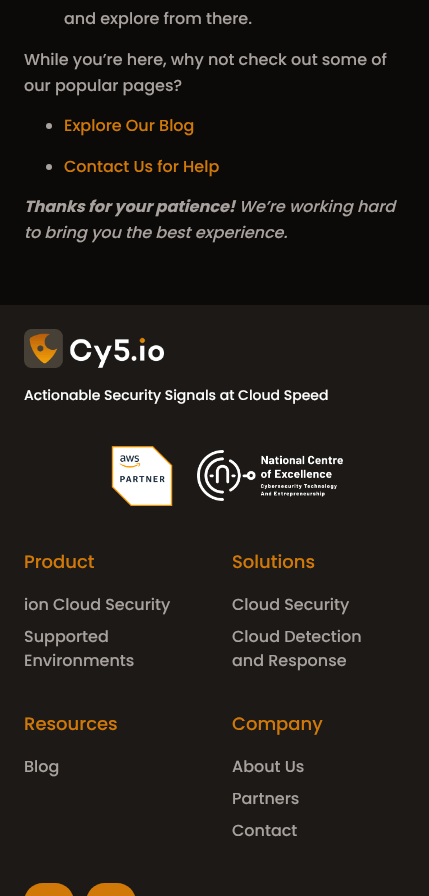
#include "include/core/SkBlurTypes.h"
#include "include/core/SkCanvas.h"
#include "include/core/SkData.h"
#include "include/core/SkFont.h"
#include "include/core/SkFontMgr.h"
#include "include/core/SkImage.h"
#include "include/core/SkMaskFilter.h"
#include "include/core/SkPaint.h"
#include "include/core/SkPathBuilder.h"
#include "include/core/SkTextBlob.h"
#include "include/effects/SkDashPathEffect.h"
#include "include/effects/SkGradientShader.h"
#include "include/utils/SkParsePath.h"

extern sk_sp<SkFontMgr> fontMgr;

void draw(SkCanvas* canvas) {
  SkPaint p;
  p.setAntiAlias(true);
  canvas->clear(SkColorSetRGB(12, 10, 9));
  p.setColor(SkColorSetRGB(168, 162, 158));
  canvas->drawCircle(49, 126, 3, p);
  canvas->drawCircle(49, 167, 3, p);
  p.setColor(SkColorSetRGB(28, 25, 23));
  canvas->drawRect(SkRect::MakeLTRB(0, 305, 429, 896), p);
  canvas->drawImageRect(SkImages::DeferredFromEncodedData(SkData::MakeFromFileName("images/1.png")), SkRect::MakeLTRB(24, 329, 164, 368), SkSamplingOptions());
  canvas->drawImageRect(SkImages::DeferredFromEncodedData(SkData::MakeFromFileName("images/2.png")), SkRect::MakeLTRB(111, 446, 173, 506), SkSamplingOptions());
  canvas->drawImageRect(SkImages::DeferredFromEncodedData(SkData::MakeFromFileName("images/3.png")), SkRect::MakeLTRB(197, 450, 343, 501), SkSamplingOptions());
  p.setColor(SkColorSetRGB(208, 121, 9));
  canvas->drawRoundRect(SkRect::MakeLTRB(24, 883, 74, 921), 25, 25, p);
  canvas->drawRoundRect(SkRect::MakeLTRB(86, 883, 136, 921), 25, 25, p);
  SkFont font1(fontMgr->matchFamilyStyle("Poppins", SkFontStyle(500, SkFontStyle::kNormal_Width, SkFontStyle::kUpright_Slant)), 16);
  font1.setSubpixel(true);
  p.setColor(SkColorSetRGB(168, 162, 158));
  canvas->drawString("and explore from there.", 64, 24, font1, p);
  canvas->drawString("While you’re here, why not check out some of", 24, 65, font1, p);
  canvas->drawString("our popular pages?", 24, 91, font1, p);
  p.setColor(SkColorSetRGB(208, 121, 9));
  canvas->drawString("Explore Our Blog", 64, 131, font1, p);
  canvas->drawString("Contact Us for Help", 64, 172, font1, p);
  SkFont font2(fontMgr->matchFamilyStyle("Poppins", SkFontStyle::BoldItalic()), 16);
  font2.setSubpixel(true);
  p.setColor(SkColorSetRGB(168, 162, 158));
  canvas->drawString("Thanks for your patience!", 24, 212, font2, p);
  SkFont font3(fontMgr->matchFamilyStyle("Poppins", SkFontStyle(500, SkFontStyle::kNormal_Width, SkFontStyle::kItalic_Slant)), 16);
  font3.setSubpixel(true);
  canvas->drawString("We’re working hard", 239, 212, font3, p);
  canvas->drawString("to bring you the best experience.", 24, 238, font3, p);
  SkFont font4(fontMgr->matchFamilyStyle("Poppins", SkFontStyle(500, SkFontStyle::kNormal_Width, SkFontStyle::kUpright_Slant)), 14);
  font4.setSubpixel(true);
  p.setColor(SK_ColorWHITE);
  canvas->drawString("Actionable Security Signals at Cloud Speed", 24, 400, font4, p);
  SkFont font5(fontMgr->matchFamilyStyle("Poppins", SkFontStyle(500, SkFontStyle::kNormal_Width, SkFontStyle::kUpright_Slant)), 18);
  font5.setSubpixel(true);
  p.setColor(SkColorSetRGB(208, 121, 9));
  canvas->drawString("Product", 24, 568, font5, p);
  p.setColor(SkColorSetRGB(168, 162, 158));
  canvas->drawString("ion Cloud Security", 24, 610, font1, p);
  canvas->drawString("Supported", 24, 642, font1, p);
  canvas->drawString("Environments", 24, 666, font1, p);
  p.setColor(SkColorSetRGB(208, 121, 9));
  canvas->drawString("Solutions", 232, 568, font5, p);
  p.setColor(SkColorSetRGB(168, 162, 158));
  canvas->drawString("Cloud Security", 232, 610, font1, p);
  canvas->drawString("Cloud Detection", 232, 642, font1, p);
  canvas->drawString("and Response", 232, 666, font1, p);
  p.setColor(SkColorSetRGB(208, 121, 9));
  canvas->drawString("Resources", 24, 730, font5, p);
  p.setColor(SkColorSetRGB(168, 162, 158));
  canvas->drawString("Blog", 24, 772, font1, p);
  p.setColor(SkColorSetRGB(208, 121, 9));
  canvas->drawString("Company", 232, 730, font5, p);
  p.setColor(SkColorSetRGB(168, 162, 158));
  canvas->drawString("About Us", 232, 772, font1, p);
  canvas->drawString("Partners", 232, 804, font1, p);
  canvas->drawString("Contact", 232, 836, font1, p);
}
